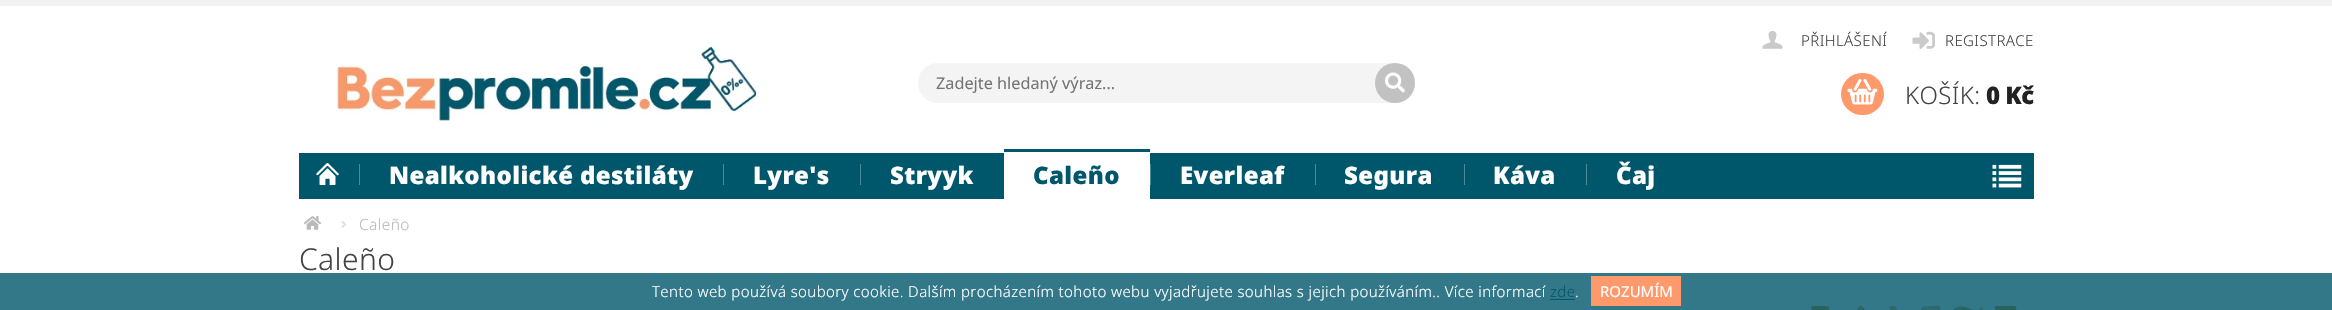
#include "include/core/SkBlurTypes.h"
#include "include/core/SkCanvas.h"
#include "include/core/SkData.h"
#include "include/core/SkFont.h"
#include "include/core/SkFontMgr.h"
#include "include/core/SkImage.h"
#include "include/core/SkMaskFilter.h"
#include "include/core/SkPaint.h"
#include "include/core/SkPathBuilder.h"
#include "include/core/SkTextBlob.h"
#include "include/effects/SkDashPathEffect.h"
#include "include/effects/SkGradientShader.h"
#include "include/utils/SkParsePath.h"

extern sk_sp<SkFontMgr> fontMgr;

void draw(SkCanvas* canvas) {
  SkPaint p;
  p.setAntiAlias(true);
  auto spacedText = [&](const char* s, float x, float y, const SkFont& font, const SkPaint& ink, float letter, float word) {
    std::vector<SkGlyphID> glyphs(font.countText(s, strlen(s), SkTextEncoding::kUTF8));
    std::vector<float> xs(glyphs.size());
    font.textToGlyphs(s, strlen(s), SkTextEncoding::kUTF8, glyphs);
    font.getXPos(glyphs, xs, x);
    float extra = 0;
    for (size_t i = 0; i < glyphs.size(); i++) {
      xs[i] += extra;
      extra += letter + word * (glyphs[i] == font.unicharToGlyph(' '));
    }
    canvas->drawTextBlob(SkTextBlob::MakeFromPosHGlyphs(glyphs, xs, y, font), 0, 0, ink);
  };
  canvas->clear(SK_ColorWHITE);
  p.setColor(SkColorSetRGB(51, 120, 137));
  canvas->drawRect(SkRect::MakeLTRB(0, 273, 2332, 310), p);
  p.setColor(SkColorSetRGB(242, 242, 242));
  canvas->drawRect(SkRect::MakeLTRB(0, 0, 2332, 6), p);
  canvas->drawImageRect(SkImages::DeferredFromEncodedData(SkData::MakeFromFileName("images/1.png")), SkRect::MakeLTRB(336, 46, 759, 122), SkSamplingOptions());
  p.setColor(SkColorSetRGB(244, 244, 244));
  canvas->drawRoundRect(SkRect::MakeLTRB(918, 63, 1415, 103), 20, 20, p);
  p.setColor(SkColorSetRGB(194, 194, 194));
  canvas->drawCircle(1395, 83, 20, p);
  canvas->drawImageRect(SkImages::DeferredFromEncodedData(SkData::MakeFromFileName("images/2.png")), SkRect::MakeLTRB(1385, 72, 1405, 93), SkSamplingOptions());
  canvas->drawImageRect(SkImages::DeferredFromEncodedData(SkData::MakeFromFileName("images/3.png")), SkRect::MakeLTRB(1762, 31, 1783, 49), SkSamplingOptions());
  canvas->drawImageRect(SkImages::DeferredFromEncodedData(SkData::MakeFromFileName("images/4.png")), SkRect::MakeLTRB(1912, 31, 1935, 49), SkSamplingOptions());
  p.setColor(SkColorSetRGB(254, 153, 107));
  canvas->drawRoundRect(SkRect::MakeLTRB(1841, 73, 1884, 115), 21, 21, p);
  canvas->drawImageRect(SkImages::DeferredFromEncodedData(SkData::MakeFromFileName("images/5.png")), SkRect::MakeLTRB(1847, 79, 1878, 105), SkSamplingOptions());
  p.setColor(SkColorSetRGB(0, 86, 107));
  canvas->drawRect(SkRect::MakeLTRB(299, 153, 2034, 199), p);
  canvas->drawImageRect(SkImages::DeferredFromEncodedData(SkData::MakeFromFileName("images/6.png")), SkRect::MakeLTRB(316, 163, 339, 185), SkSamplingOptions());
  p.setColor(SkColorSetRGB(77, 137, 151));
  canvas->drawRect(SkRect::MakeLTRB(359, 164, 360, 185), p);
  canvas->drawRect(SkRect::MakeLTRB(723, 164, 724, 185), p);
  canvas->drawRect(SkRect::MakeLTRB(860, 164, 861, 185), p);
  p.setColor(SK_ColorWHITE);
  canvas->drawRect(SkRect::MakeLTRB(1004, 153, 1150, 199), p);
  p.setColor(SkColorSetRGB(0, 86, 107));
  canvas->drawRect(SkRect::MakeLTRB(1004, 149, 1150, 152), p);
  p.setColor(SkColorSetRGB(77, 137, 151));
  canvas->drawRect(SkRect::MakeLTRB(1150, 164, 1151, 185), p);
  canvas->drawRect(SkRect::MakeLTRB(1315, 164, 1316, 185), p);
  canvas->drawRect(SkRect::MakeLTRB(1464, 164, 1465, 185), p);
  canvas->drawRect(SkRect::MakeLTRB(1586, 164, 1587, 185), p);
  canvas->drawImageRect(SkImages::DeferredFromEncodedData(SkData::MakeFromFileName("images/7.png")), SkRect::MakeLTRB(1992, 164, 2022, 188), SkSamplingOptions());
  canvas->drawImageRect(SkImages::DeferredFromEncodedData(SkData::MakeFromFileName("images/8.png")), SkRect::MakeLTRB(304, 216, 322, 230), SkSamplingOptions());
  canvas->drawImageRect(SkImages::DeferredFromEncodedData(SkData::MakeFromFileName("images/9.png")), SkRect::MakeLTRB(341, 221, 347, 228), SkSamplingOptions());
  canvas->drawImageRect(SkImages::DeferredFromEncodedData(SkData::MakeFromFileName("images/10.png")), SkRect::MakeLTRB(1810, 305, 2017, 310), SkSamplingOptions());
  p.setColor(SkColorSetRGB(0, 86, 107));
  canvas->drawRect(SkRect::MakeLTRB(1550, 299, 1575, 300), p);
  p.setColor(SkColorSetRGB(254, 153, 107));
  canvas->drawRect(SkRect::MakeLTRB(1591, 276, 1681, 306), p);
  SkFont font1(fontMgr->matchFamilyStyle("Noto Sans", SkFontStyle::Normal()), 16.25f);
  font1.setSubpixel(true);
  p.setColor(SkColorSetRGB(117, 117, 117));
  canvas->drawString("Zadejte hledaný výraz...", 936, 89, font1, p);
  SkFont font2(fontMgr->matchFamilyStyle("Noto Sans", SkFontStyle(300, SkFontStyle::kNormal_Width, SkFontStyle::kUpright_Slant)), 15);
  font2.setSubpixel(true);
  p.setColor(SkColorSetRGB(68, 68, 68));
  spacedText("PŘIHLÁŠENÍ", 1801, 46, font2, p, 0.4f, 0);
  spacedText("REGISTRACE", 1945, 46, font2, p, 0.4f, 0);
  SkFont font3(fontMgr->matchFamilyStyle("Noto Sans", SkFontStyle(300, SkFontStyle::kNormal_Width, SkFontStyle::kUpright_Slant)), 24);
  font3.setSubpixel(true);
  spacedText("KOŠÍK:", 1905, 104, font3, p, 0.4f, 0);
  SkFont font4(fontMgr->matchFamilyStyle("Noto Sans", SkFontStyle(900, SkFontStyle::kNormal_Width, SkFontStyle::kUpright_Slant)), 24);
  font4.setSubpixel(true);
  p.setColor(SkColorSetRGB(34, 34, 34));
  spacedText("0 Kč", 1986, 104, font4, p, -0.5f, 0);
  p.setColor(SK_ColorWHITE);
  spacedText("Nealkoholické destiláty", 389, 184, font4, p, 0.4f, 0);
  spacedText("Lyre's", 753, 184, font4, p, 0.4f, 0);
  spacedText("Stryyk", 890, 184, font4, p, 0.4f, 0);
  p.setColor(SkColorSetRGB(0, 86, 107));
  spacedText("Caleño", 1033, 184, font4, p, 0.4f, 0);
  p.setColor(SK_ColorWHITE);
  spacedText("Everleaf", 1180, 184, font4, p, 0.4f, 0);
  spacedText("Segura", 1344, 184, font4, p, 0.4f, 0);
  spacedText("Káva", 1493, 184, font4, p, 0.4f, 0);
  spacedText("Čaj", 1616, 184, font4, p, 0.4f, 0);
  SkFont font5(fontMgr->matchFamilyStyle("Noto Sans", SkFontStyle(300, SkFontStyle::kNormal_Width, SkFontStyle::kUpright_Slant)), 15.5f);
  font5.setSubpixel(true);
  p.setColor(SkColorSetRGB(186, 186, 186));
  spacedText("Caleño", 359, 230, font5, p, 0.4f, 0);
  SkFont font6(fontMgr->matchFamilyStyle("Noto Sans", SkFontStyle(300, SkFontStyle::kNormal_Width, SkFontStyle::kUpright_Slant)), 30);
  font6.setSubpixel(true);
  p.setColor(SkColorSetRGB(68, 68, 68));
  spacedText("Caleño", 299, 270, font6, p, 0.4f, 0);
  p.setColor(SK_ColorWHITE);
  spacedText("Tento web používá soubory cookie. Dalším procházením tohoto webu vyjadřujete souhlas s jejich používáním.. Více informací", 652, 297, font2, p, 0.4f, 0);
  p.setColor(SkColorSetRGB(0, 86, 107));
  spacedText("zde", 1550, 297, font2, p, 0.4f, 0);
  p.setColor(SK_ColorWHITE);
  spacedText(".", 1575, 297, font2, p, 0.4f, 0);
  SkFont font7(fontMgr->matchFamilyStyle("Noto Sans", SkFontStyle::Normal()), 15);
  font7.setSubpixel(true);
  canvas->drawString("ROZUMÍM", 1600, 297, font7, p);
}
